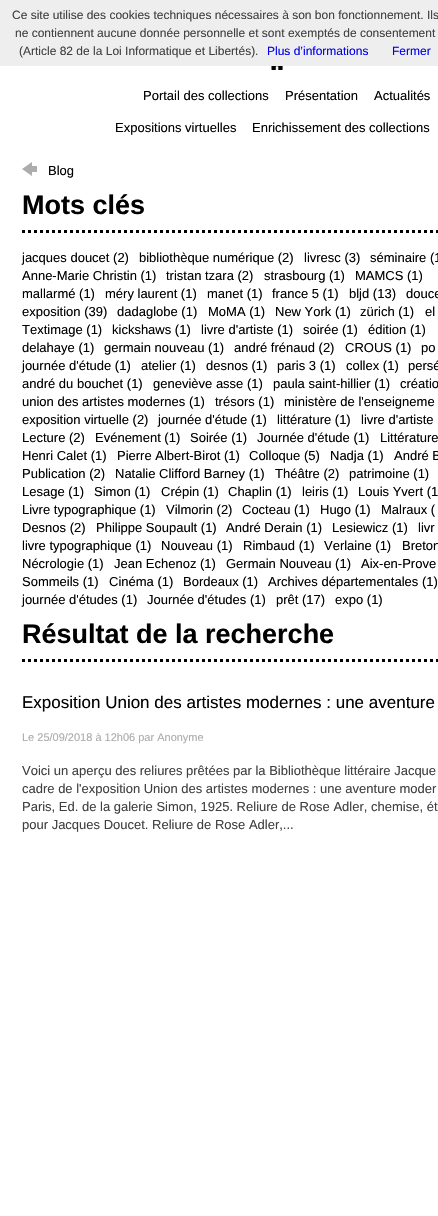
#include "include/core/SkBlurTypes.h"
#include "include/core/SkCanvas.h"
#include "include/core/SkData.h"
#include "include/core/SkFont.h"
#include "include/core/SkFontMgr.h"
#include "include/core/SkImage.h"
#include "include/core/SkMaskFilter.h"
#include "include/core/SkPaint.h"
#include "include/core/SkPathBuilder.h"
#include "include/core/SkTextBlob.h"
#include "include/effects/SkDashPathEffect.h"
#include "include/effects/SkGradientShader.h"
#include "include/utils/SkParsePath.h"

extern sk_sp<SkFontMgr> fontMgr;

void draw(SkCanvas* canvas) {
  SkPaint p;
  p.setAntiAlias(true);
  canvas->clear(SK_ColorWHITE);
  p.setColor(SkColorSetRGB(238, 238, 238));
  canvas->drawRect(SkRect::MakeLTRB(0, 0, 438, 66), p);
  canvas->drawImageRect(SkImages::DeferredFromEncodedData(SkData::MakeFromFileName("images/1.png")), SkRect::MakeLTRB(271, 66, 283, 70), SkSamplingOptions());
  p.setColor(SkColorSetRGB(173, 173, 173));
  canvas->drawPath(SkPathBuilder().moveTo(32, 162).lineTo(32, 176).lineTo(22, 169).close().detach(), p);
  canvas->drawRect(SkRect::MakeLTRB(32, 166, 37, 172), p);
  p.setStyle(SkPaint::kStroke_Style);
  p.setStrokeWidth(3);
  p.setColor(SK_ColorBLACK);
  p.setPathEffect(SkDashPathEffect::Make({{3, 3}}, 0));
  canvas->drawPath(SkPathBuilder().moveTo(22, 231.5f).lineTo(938, 231.5f).detach(), p);
  p.setPathEffect(nullptr);
  p.setPathEffect(SkDashPathEffect::Make({{3, 3}}, 0));
  canvas->drawPath(SkPathBuilder().moveTo(22, 660.5f).lineTo(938, 660.5f).detach(), p);
  p.setPathEffect(nullptr);
  SkFont font1(fontMgr->matchFamilyStyle("Liberation Sans", SkFontStyle::Normal()), 12);
  font1.setSubpixel(true);
  p.setStyle(SkPaint::kFill_Style);
  p.setColor(SkColorSetRGB(64, 64, 64));
  canvas->drawString("Ce site utilise des cookies techniques nécessaires à son bon fonctionnement. Ils", 12, 19, font1, p);
  canvas->drawString("ne contiennent aucune donnée personnelle et sont exemptés de consentement", 15, 37, font1, p);
  canvas->drawString("(Article 82 de la Loi Informatique et Libertés).", 19, 55, font1, p);
  p.setColor(SkColorSetRGB(0, 0, 238));
  canvas->drawString("Plus d’informations", 267, 55, font1, p);
  canvas->drawString("Fermer", 392, 55, font1, p);
  SkFont font2(fontMgr->matchFamilyStyle("Liberation Sans", SkFontStyle::Normal()), 13);
  font2.setSubpixel(true);
  p.setColor(SK_ColorBLACK);
  canvas->drawString("Portail des collections", 143, 100, font2, p);
  canvas->drawString("Présentation", 285, 100, font2, p);
  canvas->drawString("Actualités", 374, 100, font2, p);
  canvas->drawString("Expositions virtuelles", 115, 132, font2, p);
  canvas->drawString("Enrichissement des collections", 252, 132, font2, p);
  canvas->drawString("Blog", 48, 175, font2, p);
  SkFont font3(fontMgr->matchFamilyStyle("Liberation Sans", SkFontStyle::Bold()), 27);
  font3.setSubpixel(true);
  canvas->drawString("Mots clés", 22, 214, font3, p);
  canvas->drawString("jacques doucet (2)", 22, 262, font2, p);
  canvas->drawString("bibliothèque numérique (2)", 139, 262, font2, p);
  canvas->drawString("livresc (3)", 304, 262, font2, p);
  canvas->drawString("séminaire (1", 370, 262, font2, p);
  canvas->drawString("Anne-Marie Christin (1)", 22, 280, font2, p);
  canvas->drawString("tristan tzara (2)", 166, 280, font2, p);
  canvas->drawString("strasbourg (1)", 264, 280, font2, p);
  canvas->drawString("MAMCS (1)", 355, 280, font2, p);
  canvas->drawString("mallarmé (1)", 22, 298, font2, p);
  canvas->drawString("méry laurent (1)", 105, 298, font2, p);
  canvas->drawString("manet (1)", 207, 298, font2, p);
  canvas->drawString("france 5 (1)", 272, 298, font2, p);
  canvas->drawString("bljd (13)", 349, 298, font2, p);
  canvas->drawString("douce", 406, 298, font2, p);
  canvas->drawString("exposition (39)", 22, 316, font2, p);
  canvas->drawString("dadaglobe (1)", 117, 316, font2, p);
  canvas->drawString("MoMA (1)", 208, 316, font2, p);
  canvas->drawString("New York (1)", 275, 316, font2, p);
  canvas->drawString("zürich (1)", 360, 316, font2, p);
  canvas->drawString("el", 425, 316, font2, p);
  canvas->drawString("Textimage (1)", 22, 334, font2, p);
  canvas->drawString("kickshaws (1)", 112, 334, font2, p);
  canvas->drawString("livre d'artiste (1)", 201, 334, font2, p);
  canvas->drawString("soirée (1)", 303, 334, font2, p);
  canvas->drawString("édition (1)", 368, 334, font2, p);
  canvas->drawString("delahaye (1)", 22, 352, font2, p);
  canvas->drawString("germain nouveau (1)", 104, 352, font2, p);
  canvas->drawString("andré frénaud (2)", 234, 352, font2, p);
  canvas->drawString("CROUS (1)", 345, 352, font2, p);
  canvas->drawString("po", 421, 352, font2, p);
  canvas->drawString("journée d'étude (1)", 22, 370, font2, p);
  canvas->drawString("atelier (1)", 141, 370, font2, p);
  canvas->drawString("desnos (1)", 206, 370, font2, p);
  canvas->drawString("paris 3 (1)", 277, 370, font2, p);
  canvas->drawString("collex (1)", 346, 370, font2, p);
  canvas->drawString("persé", 408, 370, font2, p);
  canvas->drawString("andré du bouchet (1)", 22, 388, font2, p);
  canvas->drawString("geneviève asse (1)", 153, 388, font2, p);
  canvas->drawString("paula saint-hillier (1)", 273, 388, font2, p);
  canvas->drawString("créatio", 400, 388, font2, p);
  canvas->drawString("union des artistes modernes (1)", 22, 406, font2, p);
  canvas->drawString("trésors (1)", 215, 406, font2, p);
  canvas->drawString("ministère de l'enseigneme", 284, 406, font2, p);
  canvas->drawString("exposition virtuelle (2)", 22, 424, font2, p);
  canvas->drawString("journée d'étude (1)", 158, 424, font2, p);
  canvas->drawString("littérature (1)", 277, 424, font2, p);
  canvas->drawString("livre d'artiste", 361, 424, font2, p);
  canvas->drawString("Lecture (2)", 22, 442, font2, p);
  canvas->drawString("Evénement (1)", 95, 442, font2, p);
  canvas->drawString("Soirée (1)", 190, 442, font2, p);
  canvas->drawString("Journée d'étude (1)", 257, 442, font2, p);
  canvas->drawString("Littérature", 380, 442, font2, p);
  canvas->drawString("Henri Calet (1)", 22, 460, font2, p);
  canvas->drawString("Pierre Albert-Birot (1)", 117, 460, font2, p);
  canvas->drawString("Colloque (5)", 249, 460, font2, p);
  canvas->drawString("Nadja (1)", 330, 460, font2, p);
  canvas->drawString("André B", 394, 460, font2, p);
  canvas->drawString("Publication (2)", 22, 478, font2, p);
  canvas->drawString("Natalie Clifford Barney (1)", 115, 478, font2, p);
  canvas->drawString("Théâtre (2)", 275, 478, font2, p);
  canvas->drawString("patrimoine (1)", 349, 478, font2, p);
  canvas->drawString("Lesage (1)", 22, 496, font2, p);
  canvas->drawString("Simon (1)", 94, 496, font2, p);
  canvas->drawString("Crépin (1)", 161, 496, font2, p);
  canvas->drawString("Chaplin (1)", 228, 496, font2, p);
  canvas->drawString("leiris (1)", 302, 496, font2, p);
  canvas->drawString("Louis Yvert (1", 358, 496, font2, p);
  canvas->drawString("Livre typographique (1)", 22, 514, font2, p);
  canvas->drawString("Vilmorin (2)", 166, 514, font2, p);
  canvas->drawString("Cocteau (1)", 242, 514, font2, p);
  canvas->drawString("Hugo (1)", 320, 514, font2, p);
  canvas->drawString("Malraux (", 381, 514, font2, p);
  canvas->drawString("Desnos (2)", 22, 532, font2, p);
  canvas->drawString("Philippe Soupault (1)", 96, 532, font2, p);
  canvas->drawString("André Derain (1)", 226, 532, font2, p);
  canvas->drawString("Lesiewicz (1)", 332, 532, font2, p);
  canvas->drawString("livr", 418, 532, font2, p);
  canvas->drawString("livre typographique (1)", 22, 550, font2, p);
  canvas->drawString("Nouveau (1)", 161, 550, font2, p);
  canvas->drawString("Rimbaud (1)", 243, 550, font2, p);
  canvas->drawString("Verlaine (1)", 324, 550, font2, p);
  canvas->drawString("Breton", 402, 550, font2, p);
  canvas->drawString("Nécrologie (1)", 22, 568, font2, p);
  canvas->drawString("Jean Echenoz (1)", 114, 568, font2, p);
  canvas->drawString("Germain Nouveau (1)", 226, 568, font2, p);
  canvas->drawString("Aix-en-Prove", 361, 568, font2, p);
  canvas->drawString("Sommeils (1)", 22, 586, font2, p);
  canvas->drawString("Cinéma (1)", 109, 586, font2, p);
  canvas->drawString("Bordeaux (1)", 183, 586, font2, p);
  canvas->drawString("Archives départementales (1)", 268, 586, font2, p);
  canvas->drawString("journée d'études (1)", 22, 604, font2, p);
  canvas->drawString("Journée d'études (1)", 147, 604, font2, p);
  canvas->drawString("prêt (17)", 276, 604, font2, p);
  canvas->drawString("expo (1)", 335, 604, font2, p);
  canvas->drawString("Résultat de la recherche", 22, 643, font3, p);
  SkFont font4(fontMgr->matchFamilyStyle("Liberation Sans", SkFontStyle::Normal()), 17);
  font4.setSubpixel(true);
  canvas->drawString("Exposition Union des artistes modernes : une aventure", 22, 708, font4, p);
  SkFont font5(fontMgr->matchFamilyStyle("Liberation Sans", SkFontStyle::Normal()), 11);
  font5.setSubpixel(true);
  p.setColor(SkColorSetRGB(171, 171, 171));
  canvas->drawString("Le 25/09/2018 à 12h06 par Anonyme", 22, 741, font5, p);
  p.setColor(SkColorSetRGB(64, 64, 64));
  canvas->drawString("Voici un aperçu des reliures prêtées par la Bibliothèque littéraire Jacque", 22, 775, font2, p);
  canvas->drawString("cadre de l'exposition Union des artistes modernes : une aventure moder", 22, 793, font2, p);
  canvas->drawString("Paris, Ed. de la galerie Simon, 1925. Reliure de Rose Adler, chemise, ét", 22, 811, font2, p);
  canvas->drawString("pour Jacques Doucet. Reliure de Rose Adler,...", 22, 829, font2, p);
}
